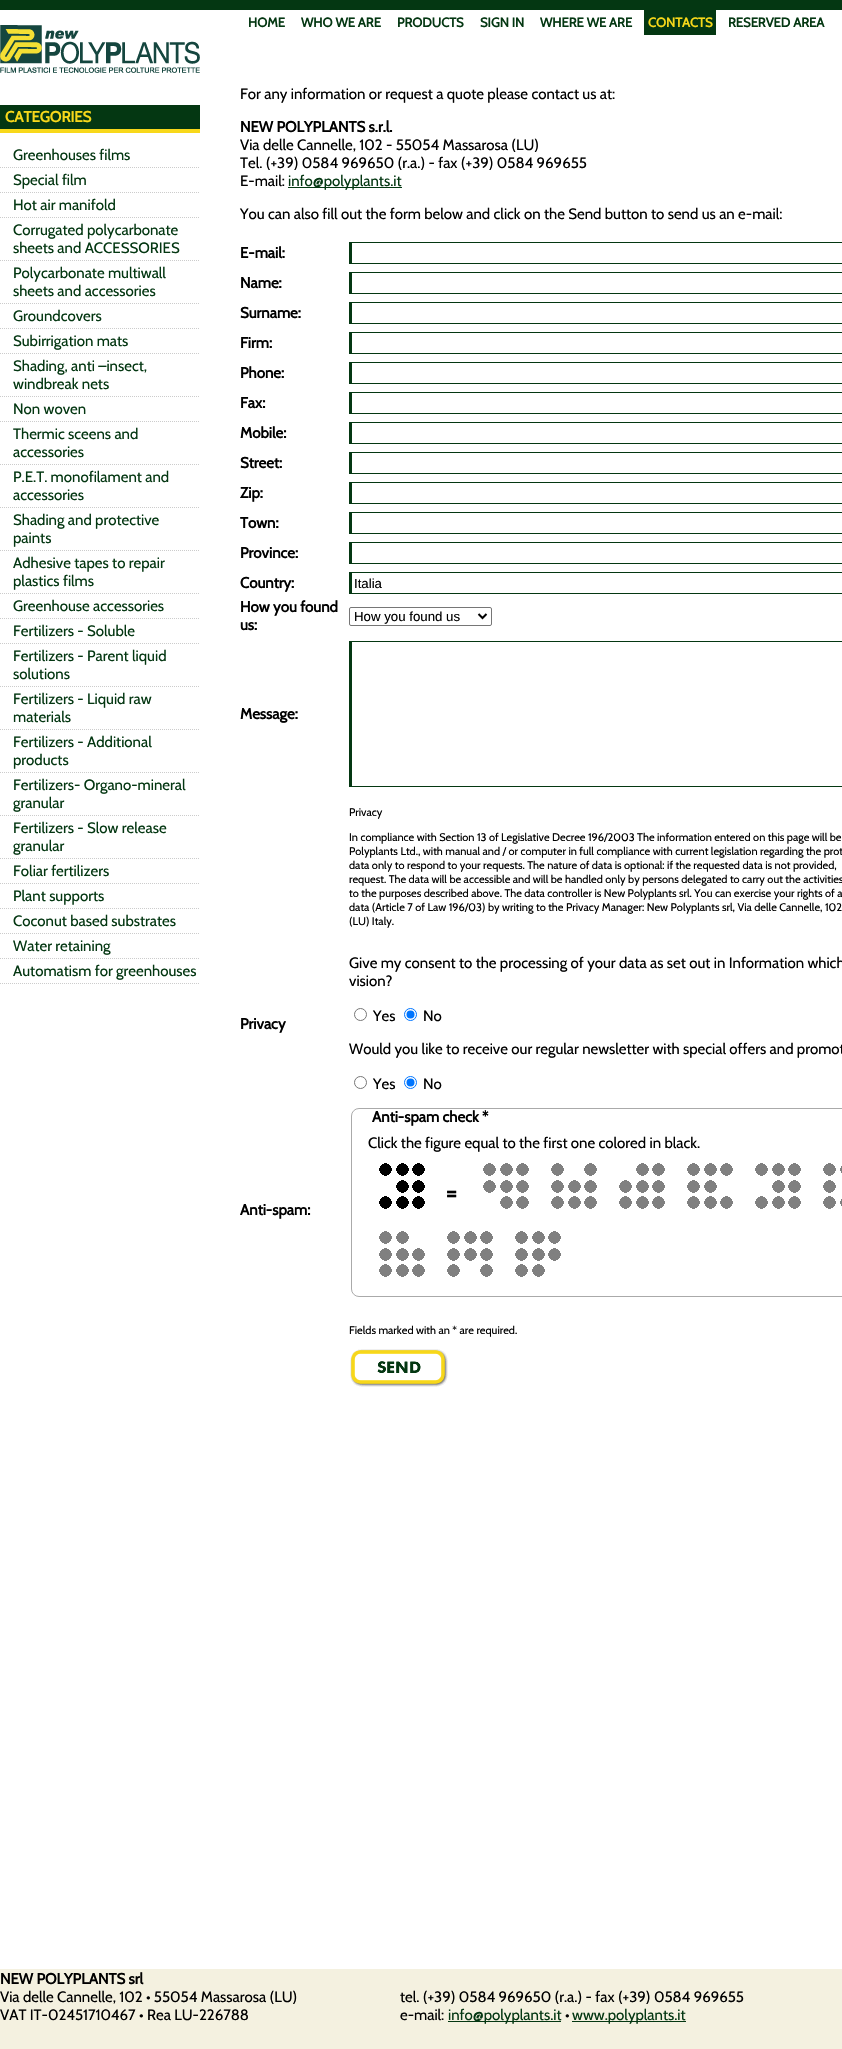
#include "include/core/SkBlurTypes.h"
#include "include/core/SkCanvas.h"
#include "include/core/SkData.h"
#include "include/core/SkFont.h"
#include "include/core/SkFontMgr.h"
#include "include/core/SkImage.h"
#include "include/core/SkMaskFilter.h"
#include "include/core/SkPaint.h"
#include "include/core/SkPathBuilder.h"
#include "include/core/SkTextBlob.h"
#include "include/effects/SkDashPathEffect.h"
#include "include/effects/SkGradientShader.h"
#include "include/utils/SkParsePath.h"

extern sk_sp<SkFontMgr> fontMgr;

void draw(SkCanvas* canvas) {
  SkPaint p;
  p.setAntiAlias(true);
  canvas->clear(SK_ColorWHITE);
  p.setColor(SkColorSetRGB(4, 55, 18));
  canvas->drawRect(SkRect::MakeLTRB(0, 0, 842, 10), p);
  canvas->drawImageRect(SkImages::DeferredFromEncodedData(SkData::MakeFromFileName("images/1.png")), SkRect::MakeLTRB(0, 25, 200, 73), SkSamplingOptions());
  canvas->drawRect(SkRect::MakeLTRB(0, 105, 200, 129), p);
  p.setColor(SkColorSetRGB(248, 216, 26));
  canvas->drawRect(SkRect::MakeLTRB(0, 129, 200, 133), p);
  p.setStyle(SkPaint::kStroke_Style);
  p.setStrokeWidth(1);
  p.setColor(SkColorSetRGB(204, 204, 204));
  p.setPathEffect(SkDashPathEffect::Make({{1, 1}}, 0));
  canvas->drawPath(SkPathBuilder().moveTo(0, 167.5f).lineTo(200, 167.5f).detach(), p);
  p.setPathEffect(nullptr);
  p.setPathEffect(SkDashPathEffect::Make({{1, 1}}, 0));
  canvas->drawPath(SkPathBuilder().moveTo(0, 192.5f).lineTo(200, 192.5f).detach(), p);
  p.setPathEffect(nullptr);
  p.setPathEffect(SkDashPathEffect::Make({{1, 1}}, 0));
  canvas->drawPath(SkPathBuilder().moveTo(0, 217.5f).lineTo(200, 217.5f).detach(), p);
  p.setPathEffect(nullptr);
  p.setPathEffect(SkDashPathEffect::Make({{1, 1}}, 0));
  canvas->drawPath(SkPathBuilder().moveTo(0, 260.5f).lineTo(200, 260.5f).detach(), p);
  p.setPathEffect(nullptr);
  p.setPathEffect(SkDashPathEffect::Make({{1, 1}}, 0));
  canvas->drawPath(SkPathBuilder().moveTo(0, 303.5f).lineTo(200, 303.5f).detach(), p);
  p.setPathEffect(nullptr);
  p.setPathEffect(SkDashPathEffect::Make({{1, 1}}, 0));
  canvas->drawPath(SkPathBuilder().moveTo(0, 328.5f).lineTo(200, 328.5f).detach(), p);
  p.setPathEffect(nullptr);
  p.setPathEffect(SkDashPathEffect::Make({{1, 1}}, 0));
  canvas->drawPath(SkPathBuilder().moveTo(0, 353.5f).lineTo(200, 353.5f).detach(), p);
  p.setPathEffect(nullptr);
  p.setPathEffect(SkDashPathEffect::Make({{1, 1}}, 0));
  canvas->drawPath(SkPathBuilder().moveTo(0, 396.5f).lineTo(200, 396.5f).detach(), p);
  p.setPathEffect(nullptr);
  p.setPathEffect(SkDashPathEffect::Make({{1, 1}}, 0));
  canvas->drawPath(SkPathBuilder().moveTo(0, 421.5f).lineTo(200, 421.5f).detach(), p);
  p.setPathEffect(nullptr);
  p.setPathEffect(SkDashPathEffect::Make({{1, 1}}, 0));
  canvas->drawPath(SkPathBuilder().moveTo(0, 464.5f).lineTo(200, 464.5f).detach(), p);
  p.setPathEffect(nullptr);
  p.setPathEffect(SkDashPathEffect::Make({{1, 1}}, 0));
  canvas->drawPath(SkPathBuilder().moveTo(0, 507.5f).lineTo(200, 507.5f).detach(), p);
  p.setPathEffect(nullptr);
  p.setPathEffect(SkDashPathEffect::Make({{1, 1}}, 0));
  canvas->drawPath(SkPathBuilder().moveTo(0, 550.5f).lineTo(200, 550.5f).detach(), p);
  p.setPathEffect(nullptr);
  p.setPathEffect(SkDashPathEffect::Make({{1, 1}}, 0));
  canvas->drawPath(SkPathBuilder().moveTo(0, 593.5f).lineTo(200, 593.5f).detach(), p);
  p.setPathEffect(nullptr);
  p.setPathEffect(SkDashPathEffect::Make({{1, 1}}, 0));
  canvas->drawPath(SkPathBuilder().moveTo(0, 618.5f).lineTo(200, 618.5f).detach(), p);
  p.setPathEffect(nullptr);
  p.setPathEffect(SkDashPathEffect::Make({{1, 1}}, 0));
  canvas->drawPath(SkPathBuilder().moveTo(0, 643.5f).lineTo(200, 643.5f).detach(), p);
  p.setPathEffect(nullptr);
  p.setPathEffect(SkDashPathEffect::Make({{1, 1}}, 0));
  canvas->drawPath(SkPathBuilder().moveTo(0, 686.5f).lineTo(200, 686.5f).detach(), p);
  p.setPathEffect(nullptr);
  p.setPathEffect(SkDashPathEffect::Make({{1, 1}}, 0));
  canvas->drawPath(SkPathBuilder().moveTo(0, 729.5f).lineTo(200, 729.5f).detach(), p);
  p.setPathEffect(nullptr);
  p.setPathEffect(SkDashPathEffect::Make({{1, 1}}, 0));
  canvas->drawPath(SkPathBuilder().moveTo(0, 772.5f).lineTo(200, 772.5f).detach(), p);
  p.setPathEffect(nullptr);
  p.setPathEffect(SkDashPathEffect::Make({{1, 1}}, 0));
  canvas->drawPath(SkPathBuilder().moveTo(0, 815.5f).lineTo(200, 815.5f).detach(), p);
  p.setPathEffect(nullptr);
  p.setPathEffect(SkDashPathEffect::Make({{1, 1}}, 0));
  canvas->drawPath(SkPathBuilder().moveTo(0, 858.5f).lineTo(200, 858.5f).detach(), p);
  p.setPathEffect(nullptr);
  p.setPathEffect(SkDashPathEffect::Make({{1, 1}}, 0));
  canvas->drawPath(SkPathBuilder().moveTo(0, 883.5f).lineTo(200, 883.5f).detach(), p);
  p.setPathEffect(nullptr);
  p.setPathEffect(SkDashPathEffect::Make({{1, 1}}, 0));
  canvas->drawPath(SkPathBuilder().moveTo(0, 908.5f).lineTo(200, 908.5f).detach(), p);
  p.setPathEffect(nullptr);
  p.setPathEffect(SkDashPathEffect::Make({{1, 1}}, 0));
  canvas->drawPath(SkPathBuilder().moveTo(0, 933.5f).lineTo(200, 933.5f).detach(), p);
  p.setPathEffect(nullptr);
  p.setPathEffect(SkDashPathEffect::Make({{1, 1}}, 0));
  canvas->drawPath(SkPathBuilder().moveTo(0, 958.5f).lineTo(200, 958.5f).detach(), p);
  p.setPathEffect(nullptr);
  p.setPathEffect(SkDashPathEffect::Make({{1, 1}}, 0));
  canvas->drawPath(SkPathBuilder().moveTo(0, 983.5f).lineTo(200, 983.5f).detach(), p);
  p.setPathEffect(nullptr);
  p.setStyle(SkPaint::kFill_Style);
  p.setColor(SkColorSetRGB(4, 55, 18));
  canvas->drawRect(SkRect::MakeLTRB(644, 10, 716, 35), p);
  canvas->drawRect(SkRect::MakeLTRB(288, 187, 402, 188), p);
  canvas->drawRect(SkRect::MakeLTRB(349, 242, 842, 243), p);
  canvas->drawRect(SkRect::MakeLTRB(349, 263, 842, 264), p);
  canvas->drawRect(SkRect::MakeLTRB(349, 242, 352, 264), p);
  canvas->drawRect(SkRect::MakeLTRB(349, 272, 842, 273), p);
  canvas->drawRect(SkRect::MakeLTRB(349, 293, 842, 294), p);
  canvas->drawRect(SkRect::MakeLTRB(349, 272, 352, 294), p);
  canvas->drawRect(SkRect::MakeLTRB(349, 302, 842, 303), p);
  canvas->drawRect(SkRect::MakeLTRB(349, 323, 842, 324), p);
  canvas->drawRect(SkRect::MakeLTRB(349, 302, 352, 324), p);
  canvas->drawRect(SkRect::MakeLTRB(349, 332, 842, 333), p);
  canvas->drawRect(SkRect::MakeLTRB(349, 353, 842, 354), p);
  canvas->drawRect(SkRect::MakeLTRB(349, 332, 352, 354), p);
  canvas->drawRect(SkRect::MakeLTRB(349, 362, 842, 363), p);
  canvas->drawRect(SkRect::MakeLTRB(349, 383, 842, 384), p);
  canvas->drawRect(SkRect::MakeLTRB(349, 362, 352, 384), p);
  canvas->drawRect(SkRect::MakeLTRB(349, 392, 842, 393), p);
  canvas->drawRect(SkRect::MakeLTRB(349, 413, 842, 414), p);
  canvas->drawRect(SkRect::MakeLTRB(349, 392, 352, 414), p);
  canvas->drawRect(SkRect::MakeLTRB(349, 422, 842, 423), p);
  canvas->drawRect(SkRect::MakeLTRB(349, 443, 842, 444), p);
  canvas->drawRect(SkRect::MakeLTRB(349, 422, 352, 444), p);
  canvas->drawRect(SkRect::MakeLTRB(349, 452, 842, 453), p);
  canvas->drawRect(SkRect::MakeLTRB(349, 473, 842, 474), p);
  canvas->drawRect(SkRect::MakeLTRB(349, 452, 352, 474), p);
  canvas->drawRect(SkRect::MakeLTRB(349, 482, 842, 483), p);
  canvas->drawRect(SkRect::MakeLTRB(349, 503, 842, 504), p);
  canvas->drawRect(SkRect::MakeLTRB(349, 482, 352, 504), p);
  canvas->drawRect(SkRect::MakeLTRB(349, 512, 842, 513), p);
  canvas->drawRect(SkRect::MakeLTRB(349, 533, 842, 534), p);
  canvas->drawRect(SkRect::MakeLTRB(349, 512, 352, 534), p);
  canvas->drawRect(SkRect::MakeLTRB(349, 542, 842, 543), p);
  canvas->drawRect(SkRect::MakeLTRB(349, 563, 842, 564), p);
  canvas->drawRect(SkRect::MakeLTRB(349, 542, 352, 564), p);
  canvas->drawRect(SkRect::MakeLTRB(349, 572, 842, 573), p);
  canvas->drawRect(SkRect::MakeLTRB(349, 593, 842, 594), p);
  canvas->drawRect(SkRect::MakeLTRB(349, 572, 352, 594), p);
  p.setStyle(SkPaint::kStroke_Style);
  p.setColor(SkColorSetRGB(118, 118, 118));
  canvas->drawRoundRect(SkRect::MakeLTRB(349.5f, 607.5f, 491.5f, 625.5f), 1.5f, 1.5f, p);
  p.setStrokeWidth(2);
  p.setColor(SK_ColorBLACK);
  canvas->drawPath(SkPathBuilder().moveTo(478.5f, 614).lineTo(482.5f, 618).lineTo(486.5f, 614).detach(), p);
  p.setStyle(SkPaint::kFill_Style);
  p.setColor(SkColorSetRGB(4, 55, 18));
  canvas->drawRect(SkRect::MakeLTRB(349, 641, 842, 642), p);
  canvas->drawRect(SkRect::MakeLTRB(349, 786, 842, 787), p);
  canvas->drawRect(SkRect::MakeLTRB(349, 641, 352, 787), p);
  p.setStyle(SkPaint::kStroke_Style);
  p.setStrokeWidth(1);
  p.setColor(SkColorSetRGB(118, 118, 118));
  canvas->drawCircle(360.5f, 1014.5f, 6, p);
  p.setColor(SkColorSetRGB(0, 117, 255));
  canvas->drawCircle(410.5f, 1014.5f, 6, p);
  p.setStyle(SkPaint::kFill_Style);
  canvas->drawCircle(410.5f, 1014.5f, 4, p);
  p.setStyle(SkPaint::kStroke_Style);
  p.setColor(SkColorSetRGB(118, 118, 118));
  canvas->drawCircle(360.5f, 1082.5f, 6, p);
  p.setColor(SkColorSetRGB(0, 117, 255));
  canvas->drawCircle(410.5f, 1082.5f, 6, p);
  p.setStyle(SkPaint::kFill_Style);
  canvas->drawCircle(410.5f, 1082.5f, 4, p);
  p.setStyle(SkPaint::kStroke_Style);
  p.setColor(SkColorSetRGB(170, 170, 170));
  canvas->drawRoundRect(SkRect::MakeLTRB(351.5f, 1108.5f, 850.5f, 1296.5f), 7.5f, 7.5f, p);
  canvas->drawImageRect(SkImages::DeferredFromEncodedData(SkData::MakeFromFileName("images/2.png")), SkRect::MakeLTRB(379, 1163, 425, 1209), SkSamplingOptions());
  canvas->drawImageRect(SkImages::DeferredFromEncodedData(SkData::MakeFromFileName("images/3.png")), SkRect::MakeLTRB(483, 1163, 529, 1209), SkSamplingOptions());
  canvas->drawImageRect(SkImages::DeferredFromEncodedData(SkData::MakeFromFileName("images/4.png")), SkRect::MakeLTRB(551, 1163, 597, 1209), SkSamplingOptions());
  canvas->drawImageRect(SkImages::DeferredFromEncodedData(SkData::MakeFromFileName("images/5.png")), SkRect::MakeLTRB(619, 1163, 665, 1209), SkSamplingOptions());
  canvas->drawImageRect(SkImages::DeferredFromEncodedData(SkData::MakeFromFileName("images/6.png")), SkRect::MakeLTRB(687, 1163, 733, 1209), SkSamplingOptions());
  canvas->drawImageRect(SkImages::DeferredFromEncodedData(SkData::MakeFromFileName("images/7.png")), SkRect::MakeLTRB(755, 1163, 801, 1209), SkSamplingOptions());
  canvas->drawImageRect(SkImages::DeferredFromEncodedData(SkData::MakeFromFileName("images/8.png")), SkRect::MakeLTRB(823, 1163, 842, 1209), SkSamplingOptions());
  canvas->drawImageRect(SkImages::DeferredFromEncodedData(SkData::MakeFromFileName("images/9.png")), SkRect::MakeLTRB(379, 1231, 425, 1277), SkSamplingOptions());
  canvas->drawImageRect(SkImages::DeferredFromEncodedData(SkData::MakeFromFileName("images/10.png")), SkRect::MakeLTRB(447, 1231, 493, 1277), SkSamplingOptions());
  canvas->drawImageRect(SkImages::DeferredFromEncodedData(SkData::MakeFromFileName("images/11.png")), SkRect::MakeLTRB(515, 1231, 561, 1277), SkSamplingOptions());
  canvas->drawImageRect(SkImages::DeferredFromEncodedData(SkData::MakeFromFileName("images/12.png")), SkRect::MakeLTRB(350, 1349, 448, 1387), SkSamplingOptions());
  p.setStyle(SkPaint::kFill_Style);
  p.setColor(SkColorSetRGB(244, 241, 224));
  canvas->drawRect(SkRect::MakeLTRB(0, 1969, 842, 2049), p);
  p.setColor(SkColorSetRGB(4, 55, 18));
  canvas->drawRect(SkRect::MakeLTRB(448, 2021, 561, 2022), p);
  canvas->drawRect(SkRect::MakeLTRB(572, 2021, 686, 2022), p);
  SkFont font1(fontMgr->matchFamilyStyle("Cabin", SkFontStyle::Bold()), 15);
  font1.setSubpixel(true);
  p.setColor(SkColorSetRGB(248, 216, 26));
  canvas->drawString("CATEGORIES", 5, 122, font1, p);
  SkFont font2(fontMgr->matchFamilyStyle("Cabin", SkFontStyle::Normal()), 15);
  font2.setSubpixel(true);
  p.setColor(SkColorSetRGB(4, 55, 18));
  canvas->drawString("Greenhouses films", 13, 160, font2, p);
  canvas->drawString("Special film", 13, 185, font2, p);
  canvas->drawString("Hot air manifold", 13, 210, font2, p);
  canvas->drawString("Corrugated polycarbonate", 13, 235, font2, p);
  canvas->drawString("sheets and ACCESSORIES", 13, 253, font2, p);
  canvas->drawString("Polycarbonate multiwall", 13, 278, font2, p);
  canvas->drawString("sheets and accessories", 13, 296, font2, p);
  canvas->drawString("Groundcovers", 13, 321, font2, p);
  canvas->drawString("Subirrigation mats", 13, 346, font2, p);
  canvas->drawString("Shading, anti –insect,", 13, 371, font2, p);
  canvas->drawString("windbreak nets", 13, 389, font2, p);
  canvas->drawString("Non woven", 13, 414, font2, p);
  canvas->drawString("Thermic sceens and", 13, 439, font2, p);
  canvas->drawString("accessories", 13, 457, font2, p);
  canvas->drawString("P.E.T. monofilament and", 13, 482, font2, p);
  canvas->drawString("accessories", 13, 500, font2, p);
  canvas->drawString("Shading and protective", 13, 525, font2, p);
  canvas->drawString("paints", 13, 543, font2, p);
  canvas->drawString("Adhesive tapes to repair", 13, 568, font2, p);
  canvas->drawString("plastics films", 13, 586, font2, p);
  canvas->drawString("Greenhouse accessories", 13, 611, font2, p);
  canvas->drawString("Fertilizers - Soluble", 13, 636, font2, p);
  canvas->drawString("Fertilizers - Parent liquid", 13, 661, font2, p);
  canvas->drawString("solutions", 13, 679, font2, p);
  canvas->drawString("Fertilizers - Liquid raw", 13, 704, font2, p);
  canvas->drawString("materials", 13, 722, font2, p);
  canvas->drawString("Fertilizers - Additional", 13, 747, font2, p);
  canvas->drawString("products", 13, 765, font2, p);
  canvas->drawString("Fertilizers- Organo-mineral", 13, 790, font2, p);
  canvas->drawString("granular", 13, 808, font2, p);
  canvas->drawString("Fertilizers - Slow release", 13, 833, font2, p);
  canvas->drawString("granular", 13, 851, font2, p);
  canvas->drawString("Foliar fertilizers", 13, 876, font2, p);
  canvas->drawString("Plant supports", 13, 901, font2, p);
  canvas->drawString("Coconut based substrates", 13, 926, font2, p);
  canvas->drawString("Water retaining", 13, 951, font2, p);
  canvas->drawString("Automatism for greenhouses", 13, 976, font2, p);
  SkFont font3(fontMgr->matchFamilyStyle("Cabin", SkFontStyle::Bold()), 13);
  font3.setSubpixel(true);
  canvas->drawString("HOME", 248, 27, font3, p);
  canvas->drawString("WHO WE ARE", 301, 27, font3, p);
  canvas->drawString("PRODUCTS", 397, 27, font3, p);
  canvas->drawString("SIGN IN", 480, 27, font3, p);
  canvas->drawString("WHERE WE ARE", 540, 27, font3, p);
  p.setColor(SkColorSetRGB(248, 216, 26));
  canvas->drawString("CONTACTS", 648, 27, font3, p);
  p.setColor(SkColorSetRGB(4, 55, 18));
  canvas->drawString("RESERVED AREA", 728, 27, font3, p);
  p.setColor(SK_ColorBLACK);
  canvas->drawString("For any information or request a quote please contact us at:", 240, 99, font2, p);
  canvas->drawString("NEW POLYPLANTS s.r.l.", 240, 132, font1, p);
  canvas->drawString("Via delle Cannelle, 102 - 55054 Massarosa (LU)", 240, 150, font2, p);
  canvas->drawString("Tel. (+39) 0584 969650 (r.a.) - fax (+39) 0584 969655", 240, 168, font2, p);
  canvas->drawString("E-mail:", 240, 186, font2, p);
  p.setColor(SkColorSetRGB(4, 55, 18));
  canvas->drawString("info@polyplants.it", 288, 186, font2, p);
  p.setColor(SK_ColorBLACK);
  canvas->drawString("You can also fill out the form below and click on the Send button to send us an e-mail:", 240, 219, font2, p);
  canvas->drawString("E-mail:", 240, 258, font1, p);
  canvas->drawString("Name:", 240, 288, font1, p);
  canvas->drawString("Surname:", 240, 318, font1, p);
  canvas->drawString("Firm:", 240, 348, font1, p);
  canvas->drawString("Phone:", 240, 378, font1, p);
  canvas->drawString("Fax:", 240, 408, font1, p);
  canvas->drawString("Mobile:", 240, 438, font1, p);
  canvas->drawString("Street:", 240, 468, font1, p);
  canvas->drawString("Zip:", 240, 498, font1, p);
  canvas->drawString("Town:", 240, 528, font1, p);
  canvas->drawString("Province:", 240, 558, font1, p);
  canvas->drawString("Country:", 240, 588, font1, p);
  SkFont font4(fontMgr->matchFamilyStyle("Liberation Sans", SkFontStyle::Normal()), 13.25f);
  font4.setSubpixel(true);
  canvas->drawString("Italia", 354, 588, font4, p);
  canvas->drawString("How you found", 240, 612, font1, p);
  canvas->drawString("us:", 240, 630, font1, p);
  canvas->drawString("How you found us", 354, 621, font4, p);
  canvas->drawString("Message:", 240, 719, font1, p);
  SkFont font5(fontMgr->matchFamilyStyle("Cabin", SkFontStyle::Normal()), 11);
  font5.setSubpixel(true);
  canvas->drawString("Privacy", 349, 816, font5, p);
  canvas->drawString("In compliance with Section 13 of Legislative Decree 196/2003 The information entered on this page will be", 349, 841, font5, p);
  canvas->drawString("Polyplants Ltd., with manual and / or computer in full compliance with current legislation regarding the prot", 349, 855, font5, p);
  canvas->drawString("data only to respond to your requests. The nature of data is optional: if the requested data is not provided,", 349, 869, font5, p);
  canvas->drawString("request. The data will be accessible and will be handled only by persons delegated to carry out the activities", 349, 883, font5, p);
  canvas->drawString("to the purposes described above. The data controller is New Polyplants srl. You can exercise your rights of a", 349, 897, font5, p);
  canvas->drawString("data (Article 7 of Law 196/03) by writing to the Privacy Manager: New Polyplants srl, Via delle Cannelle, 102", 349, 911, font5, p);
  canvas->drawString("(LU) Italy.", 349, 925, font5, p);
  canvas->drawString("Privacy", 240, 1029, font1, p);
  canvas->drawString("Give my consent to the processing of your data as set out in Information which", 349, 968, font2, p);
  canvas->drawString("vision?", 349, 986, font2, p);
  canvas->drawString("Yes", 373, 1021, font2, p);
  canvas->drawString("No", 423, 1021, font2, p);
  canvas->drawString("Would you like to receive our regular newsletter with special offers and promot", 349, 1054, font2, p);
  canvas->drawString("Yes", 373, 1089, font2, p);
  canvas->drawString("No", 423, 1089, font2, p);
  canvas->drawString("Anti-spam check *", 372, 1122, font1, p);
  canvas->drawString("Click the figure equal to the first one colored in black.", 368, 1148, font2, p);
  SkFont font6(fontMgr->matchFamilyStyle("Cabin", SkFontStyle::Bold()), 24);
  font6.setSubpixel(true);
  canvas->drawString("=", 446, 1201, font6, p);
  canvas->drawString("Anti-spam:", 240, 1215, font1, p);
  canvas->drawString("Fields marked with an * are required.", 349, 1334, font5, p);
  canvas->drawString("NEW POLYPLANTS srl", 0, 1984, font1, p);
  canvas->drawString("Via delle Cannelle, 102 • 55054 Massarosa (LU)", 0, 2002, font2, p);
  canvas->drawString("VAT IT-02451710467 • Rea LU-226788", 0, 2020, font2, p);
  canvas->drawString("tel. (+39) 0584 969650 (r.a.) - fax (+39) 0584 969655", 400, 2002, font2, p);
  canvas->drawString("e-mail:", 400, 2020, font2, p);
  p.setColor(SkColorSetRGB(4, 55, 18));
  canvas->drawString("info@polyplants.it", 448, 2020, font2, p);
  p.setColor(SK_ColorBLACK);
  canvas->drawString("•", 565, 2020, font2, p);
  p.setColor(SkColorSetRGB(4, 55, 18));
  canvas->drawString("www.polyplants.it", 572, 2020, font2, p);
}
